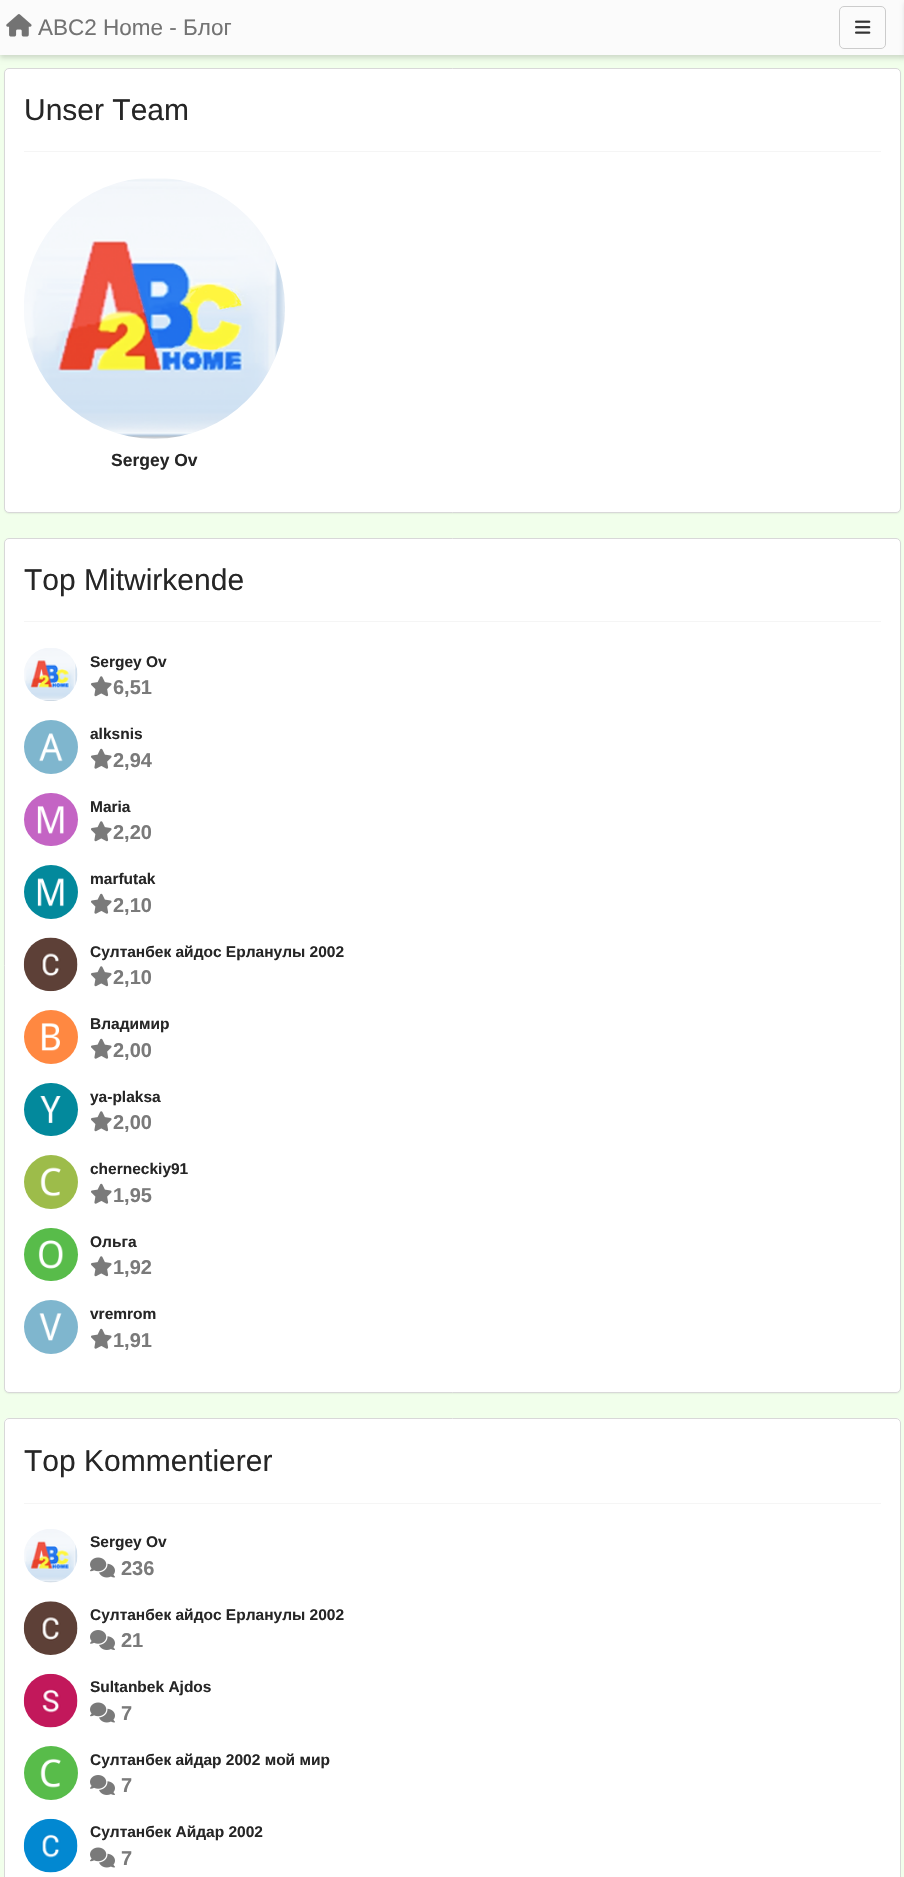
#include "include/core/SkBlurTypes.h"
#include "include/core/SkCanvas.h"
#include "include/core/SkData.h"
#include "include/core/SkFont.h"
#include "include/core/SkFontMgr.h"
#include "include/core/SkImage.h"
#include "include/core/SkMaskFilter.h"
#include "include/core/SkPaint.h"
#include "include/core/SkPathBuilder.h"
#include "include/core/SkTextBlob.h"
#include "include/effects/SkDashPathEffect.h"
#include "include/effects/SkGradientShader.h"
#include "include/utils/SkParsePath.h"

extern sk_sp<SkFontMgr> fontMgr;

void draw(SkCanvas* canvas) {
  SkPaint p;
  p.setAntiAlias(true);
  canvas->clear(SkColorSetRGB(241, 255, 235));
  p.setColor(SkColorSetARGB(38, 0, 0, 0));
  p.setMaskFilter(SkMaskFilter::MakeBlur(kNormal_SkBlurStyle, 2.5f));
  canvas->drawRect(SkRect::MakeLTRB(0, 3, 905, 58), p);
  p.setMaskFilter(nullptr);
  p.setColor(SkColorSetRGB(251, 251, 251));
  canvas->drawRect(SkRect::MakeLTRB(0, 0, 904, 55), p);
  canvas->drawImageRect(SkImages::DeferredFromEncodedData(SkData::MakeFromFileName("images/1.png")), SkRect::MakeLTRB(6, 14, 32, 37), SkSamplingOptions());
  p.setStyle(SkPaint::kStroke_Style);
  p.setStrokeWidth(1);
  p.setColor(SkColorSetRGB(204, 204, 204));
  canvas->drawRoundRect(SkRect::MakeLTRB(839.5f, 6.5f, 885.5f, 48.5f), 4.5f, 4.5f, p);
  canvas->drawImageRect(SkImages::DeferredFromEncodedData(SkData::MakeFromFileName("images/2.png")), SkRect::MakeLTRB(855, 20, 871, 34), SkSamplingOptions());
  p.setStyle(SkPaint::kFill_Style);
  p.setColor(SkColorSetARGB(38, 0, 0, 0));
  p.setMaskFilter(SkMaskFilter::MakeBlur(kNormal_SkBlurStyle, 2.5f));
  canvas->drawRect(SkRect::MakeLTRB(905, 3, 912, 58), p);
  p.setMaskFilter(nullptr);
  p.setColor(SkColorSetARGB(13, 0, 0, 0));
  p.setMaskFilter(SkMaskFilter::MakeBlur(kNormal_SkBlurStyle, 0.5f));
  canvas->drawRoundRect(SkRect::MakeLTRB(4, 69, 901, 514), 5, 5, p);
  p.setMaskFilter(nullptr);
  p.setColor(SK_ColorWHITE);
  canvas->drawRoundRect(SkRect::MakeLTRB(4.5f, 68.5f, 900.5f, 512.5f), 4.5f, 4.5f, p);
  p.setStyle(SkPaint::kStroke_Style);
  p.setColor(SkColorSetRGB(216, 216, 216));
  canvas->drawRoundRect(SkRect::MakeLTRB(4.5f, 68.5f, 900.5f, 512.5f), 4.5f, 4.5f, p);
  p.setStyle(SkPaint::kFill_Style);
  p.setColor(SkColorSetRGB(245, 245, 245));
  canvas->drawRect(SkRect::MakeLTRB(24, 151, 881, 152), p);
  canvas->drawImageRect(SkImages::DeferredFromEncodedData(SkData::MakeFromFileName("images/3.png")), SkRect::MakeLTRB(24, 178, 285, 439), SkSamplingOptions());
  p.setColor(SkColorSetARGB(13, 0, 0, 0));
  p.setMaskFilter(SkMaskFilter::MakeBlur(kNormal_SkBlurStyle, 0.5f));
  canvas->drawRoundRect(SkRect::MakeLTRB(4, 539, 901, 1394), 5, 5, p);
  p.setMaskFilter(nullptr);
  p.setColor(SK_ColorWHITE);
  canvas->drawRoundRect(SkRect::MakeLTRB(4.5f, 538.5f, 900.5f, 1392.5f), 4.5f, 4.5f, p);
  p.setStyle(SkPaint::kStroke_Style);
  p.setColor(SkColorSetRGB(216, 216, 216));
  canvas->drawRoundRect(SkRect::MakeLTRB(4.5f, 538.5f, 900.5f, 1392.5f), 4.5f, 4.5f, p);
  p.setStyle(SkPaint::kFill_Style);
  p.setColor(SkColorSetRGB(245, 245, 245));
  canvas->drawRect(SkRect::MakeLTRB(24, 621, 881, 622), p);
  canvas->drawImageRect(SkImages::DeferredFromEncodedData(SkData::MakeFromFileName("images/4.png")), SkRect::MakeLTRB(24, 648, 78, 701), SkSamplingOptions());
  canvas->drawImageRect(SkImages::DeferredFromEncodedData(SkData::MakeFromFileName("images/5.png")), SkRect::MakeLTRB(91, 676, 112, 697), SkSamplingOptions());
  p.setColor(SkColorSetRGB(127, 182, 206));
  canvas->drawCircle(51, 747, 27, p);
  canvas->drawImageRect(SkImages::DeferredFromEncodedData(SkData::MakeFromFileName("images/6.png")), SkRect::MakeLTRB(39, 733, 63, 762), SkSamplingOptions());
  canvas->drawImageRect(SkImages::DeferredFromEncodedData(SkData::MakeFromFileName("images/7.png")), SkRect::MakeLTRB(91, 748, 112, 769), SkSamplingOptions());
  p.setColor(SkColorSetRGB(196, 100, 196));
  canvas->drawRoundRect(SkRect::MakeLTRB(24, 793, 78, 846), 26.5f, 26.5f, p);
  canvas->drawImageRect(SkImages::DeferredFromEncodedData(SkData::MakeFromFileName("images/8.png")), SkRect::MakeLTRB(37, 806, 64, 834), SkSamplingOptions());
  canvas->drawImageRect(SkImages::DeferredFromEncodedData(SkData::MakeFromFileName("images/5.png")), SkRect::MakeLTRB(91, 821, 112, 842), SkSamplingOptions());
  p.setColor(SkColorSetRGB(3, 137, 156));
  canvas->drawCircle(51, 892, 27, p);
  canvas->drawImageRect(SkImages::DeferredFromEncodedData(SkData::MakeFromFileName("images/9.png")), SkRect::MakeLTRB(37, 878, 64, 907), SkSamplingOptions());
  canvas->drawImageRect(SkImages::DeferredFromEncodedData(SkData::MakeFromFileName("images/7.png")), SkRect::MakeLTRB(91, 893, 112, 914), SkSamplingOptions());
  canvas->drawImageRect(SkImages::DeferredFromEncodedData(SkData::MakeFromFileName("images/10.png")), SkRect::MakeLTRB(23, 937, 78, 992), SkSamplingOptions());
  canvas->drawImageRect(SkImages::DeferredFromEncodedData(SkData::MakeFromFileName("images/5.png")), SkRect::MakeLTRB(91, 966, 112, 987), SkSamplingOptions());
  p.setColor(SkColorSetRGB(255, 136, 65));
  canvas->drawCircle(51, 1037, 27, p);
  canvas->drawImageRect(SkImages::DeferredFromEncodedData(SkData::MakeFromFileName("images/11.png")), SkRect::MakeLTRB(41, 1023, 60, 1051), SkSamplingOptions());
  canvas->drawImageRect(SkImages::DeferredFromEncodedData(SkData::MakeFromFileName("images/7.png")), SkRect::MakeLTRB(91, 1038, 112, 1059), SkSamplingOptions());
  p.setColor(SkColorSetRGB(3, 137, 156));
  canvas->drawRoundRect(SkRect::MakeLTRB(24, 1083, 78, 1136), 26.5f, 26.5f, p);
  canvas->drawImageRect(SkImages::DeferredFromEncodedData(SkData::MakeFromFileName("images/12.png")), SkRect::MakeLTRB(40, 1096, 61, 1123), SkSamplingOptions());
  canvas->drawImageRect(SkImages::DeferredFromEncodedData(SkData::MakeFromFileName("images/5.png")), SkRect::MakeLTRB(91, 1111, 112, 1132), SkSamplingOptions());
  p.setColor(SkColorSetRGB(157, 188, 74));
  canvas->drawCircle(51, 1182, 27, p);
  canvas->drawImageRect(SkImages::DeferredFromEncodedData(SkData::MakeFromFileName("images/13.png")), SkRect::MakeLTRB(40, 1167, 61, 1197), SkSamplingOptions());
  canvas->drawImageRect(SkImages::DeferredFromEncodedData(SkData::MakeFromFileName("images/7.png")), SkRect::MakeLTRB(91, 1183, 112, 1204), SkSamplingOptions());
  p.setColor(SkColorSetRGB(88, 188, 74));
  canvas->drawRoundRect(SkRect::MakeLTRB(24, 1228, 78, 1281), 26.5f, 26.5f, p);
  canvas->drawImageRect(SkImages::DeferredFromEncodedData(SkData::MakeFromFileName("images/14.png")), SkRect::MakeLTRB(38, 1240, 63, 1269), SkSamplingOptions());
  canvas->drawImageRect(SkImages::DeferredFromEncodedData(SkData::MakeFromFileName("images/5.png")), SkRect::MakeLTRB(91, 1256, 112, 1277), SkSamplingOptions());
  p.setColor(SkColorSetRGB(127, 182, 206));
  canvas->drawCircle(51, 1327, 27, p);
  canvas->drawImageRect(SkImages::DeferredFromEncodedData(SkData::MakeFromFileName("images/15.png")), SkRect::MakeLTRB(39, 1313, 62, 1341), SkSamplingOptions());
  canvas->drawImageRect(SkImages::DeferredFromEncodedData(SkData::MakeFromFileName("images/7.png")), SkRect::MakeLTRB(91, 1328, 112, 1349), SkSamplingOptions());
  p.setColor(SK_ColorWHITE);
  canvas->drawPath(SkPathBuilder().moveTo(9, 1418).lineTo(896, 1418).cubicTo(899, 1418, 901, 1420, 901, 1423).lineTo(901, 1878).lineTo(4, 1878).lineTo(4, 1423).cubicTo(4, 1420, 6, 1418, 9, 1418).close().detach(), p);
  p.setStyle(SkPaint::kStroke_Style);
  p.setColor(SkColorSetRGB(216, 216, 216));
  canvas->drawRoundRect(SkRect::MakeLTRB(4.5f, 1418.5f, 900.5f, 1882.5f), 4.5f, 4.5f, p);
  p.setStyle(SkPaint::kFill_Style);
  p.setColor(SkColorSetRGB(245, 245, 245));
  canvas->drawRect(SkRect::MakeLTRB(24, 1503, 881, 1504), p);
  canvas->drawImageRect(SkImages::DeferredFromEncodedData(SkData::MakeFromFileName("images/16.png")), SkRect::MakeLTRB(24, 1529, 78, 1583), SkSamplingOptions());
  canvas->drawImageRect(SkImages::DeferredFromEncodedData(SkData::MakeFromFileName("images/17.png")), SkRect::MakeLTRB(90, 1557, 115, 1578), SkSamplingOptions());
  canvas->drawImageRect(SkImages::DeferredFromEncodedData(SkData::MakeFromFileName("images/18.png")), SkRect::MakeLTRB(23, 1601, 78, 1655), SkSamplingOptions());
  canvas->drawImageRect(SkImages::DeferredFromEncodedData(SkData::MakeFromFileName("images/19.png")), SkRect::MakeLTRB(90, 1630, 115, 1650), SkSamplingOptions());
  canvas->drawImageRect(SkImages::DeferredFromEncodedData(SkData::MakeFromFileName("images/20.png")), SkRect::MakeLTRB(23, 1673, 78, 1728), SkSamplingOptions());
  canvas->drawImageRect(SkImages::DeferredFromEncodedData(SkData::MakeFromFileName("images/17.png")), SkRect::MakeLTRB(90, 1702, 115, 1723), SkSamplingOptions());
  p.setColor(SkColorSetRGB(88, 188, 74));
  canvas->drawCircle(51, 1773, 27, p);
  canvas->drawImageRect(SkImages::DeferredFromEncodedData(SkData::MakeFromFileName("images/21.png")), SkRect::MakeLTRB(40, 1758, 61, 1788), SkSamplingOptions());
  canvas->drawImageRect(SkImages::DeferredFromEncodedData(SkData::MakeFromFileName("images/19.png")), SkRect::MakeLTRB(90, 1775, 115, 1795), SkSamplingOptions());
  canvas->drawImageRect(SkImages::DeferredFromEncodedData(SkData::MakeFromFileName("images/22.png")), SkRect::MakeLTRB(23, 1818, 78, 1873), SkSamplingOptions());
  canvas->drawImageRect(SkImages::DeferredFromEncodedData(SkData::MakeFromFileName("images/17.png")), SkRect::MakeLTRB(90, 1847, 115, 1868), SkSamplingOptions());
  SkFont font1(fontMgr->matchFamilyStyle("Liberation Sans", SkFontStyle::Normal()), 22.5f);
  font1.setSubpixel(true);
  p.setColor(SkColorSetRGB(115, 115, 115));
  canvas->drawString("ABC2 Home - Блог", 38, 35, font1, p);
  SkFont font2(fontMgr->matchFamilyStyle("Liberation Sans", SkFontStyle::Normal()), 30);
  font2.setSubpixel(true);
  p.setColor(SkColorSetRGB(38, 38, 38));
  canvas->drawString("Unser Team", 24, 120, font2, p);
  SkFont font3(fontMgr->matchFamilyStyle("Liberation Sans", SkFontStyle::Bold()), 17.5f);
  font3.setSubpixel(true);
  canvas->drawString("Sergey Ov", 111, 466, font3, p);
  canvas->drawString("Top Mitwirkende", 24, 590, font2, p);
  SkFont font4(fontMgr->matchFamilyStyle("Liberation Sans", SkFontStyle::Bold()), 15.5f);
  font4.setSubpixel(true);
  canvas->drawString("Sergey Ov", 90, 667, font4, p);
  SkFont font5(fontMgr->matchFamilyStyle("Liberation Sans", SkFontStyle::Bold()), 20);
  font5.setSubpixel(true);
  p.setColor(SkColorSetRGB(122, 122, 122));
  canvas->drawString("6,51", 113, 694, font5, p);
  p.setColor(SkColorSetRGB(38, 38, 38));
  canvas->drawString("alksnis", 90, 739, font4, p);
  p.setColor(SkColorSetRGB(122, 122, 122));
  canvas->drawString("2,94", 113, 767, font5, p);
  p.setColor(SkColorSetRGB(38, 38, 38));
  canvas->drawString("Maria", 90, 812, font4, p);
  p.setColor(SkColorSetRGB(122, 122, 122));
  canvas->drawString("2,20", 113, 839, font5, p);
  p.setColor(SkColorSetRGB(38, 38, 38));
  canvas->drawString("marfutak", 90, 884, font4, p);
  p.setColor(SkColorSetRGB(122, 122, 122));
  canvas->drawString("2,10", 113, 912, font5, p);
  p.setColor(SkColorSetRGB(38, 38, 38));
  canvas->drawString("Султанбек айдос Ерланулы 2002", 90, 957, font4, p);
  p.setColor(SkColorSetRGB(122, 122, 122));
  canvas->drawString("2,10", 113, 984, font5, p);
  p.setColor(SkColorSetRGB(38, 38, 38));
  canvas->drawString("Владимир", 90, 1029, font4, p);
  p.setColor(SkColorSetRGB(122, 122, 122));
  canvas->drawString("2,00", 113, 1057, font5, p);
  p.setColor(SkColorSetRGB(38, 38, 38));
  canvas->drawString("ya-plaksa", 90, 1102, font4, p);
  p.setColor(SkColorSetRGB(122, 122, 122));
  canvas->drawString("2,00", 113, 1129, font5, p);
  p.setColor(SkColorSetRGB(38, 38, 38));
  canvas->drawString("cherneckiy91", 90, 1174, font4, p);
  p.setColor(SkColorSetRGB(122, 122, 122));
  canvas->drawString("1,95", 113, 1202, font5, p);
  p.setColor(SkColorSetRGB(38, 38, 38));
  canvas->drawString("Ольга", 90, 1247, font4, p);
  p.setColor(SkColorSetRGB(122, 122, 122));
  canvas->drawString("1,92", 113, 1274, font5, p);
  p.setColor(SkColorSetRGB(38, 38, 38));
  canvas->drawString("vremrom", 90, 1319, font4, p);
  p.setColor(SkColorSetRGB(122, 122, 122));
  canvas->drawString("1,91", 113, 1347, font5, p);
  p.setColor(SkColorSetRGB(38, 38, 38));
  canvas->drawString("Top Kommentierer", 24, 1471, font2, p);
  canvas->drawString("Sergey Ov", 90, 1547, font4, p);
  p.setColor(SkColorSetRGB(122, 122, 122));
  canvas->drawString("236", 121, 1575, font5, p);
  p.setColor(SkColorSetRGB(38, 38, 38));
  canvas->drawString("Султанбек айдос Ерланулы 2002", 90, 1620, font4, p);
  p.setColor(SkColorSetRGB(122, 122, 122));
  canvas->drawString("21", 121, 1647, font5, p);
  p.setColor(SkColorSetRGB(38, 38, 38));
  canvas->drawString("Sultanbek Ajdos", 90, 1692, font4, p);
  p.setColor(SkColorSetRGB(122, 122, 122));
  canvas->drawString("7", 121, 1720, font5, p);
  p.setColor(SkColorSetRGB(38, 38, 38));
  canvas->drawString("Султанбек айдар 2002 мой мир", 90, 1765, font4, p);
  p.setColor(SkColorSetRGB(122, 122, 122));
  canvas->drawString("7", 121, 1792, font5, p);
  p.setColor(SkColorSetRGB(38, 38, 38));
  canvas->drawString("Султанбек Айдар 2002", 90, 1837, font4, p);
  p.setColor(SkColorSetRGB(122, 122, 122));
  canvas->drawString("7", 121, 1865, font5, p);
}
